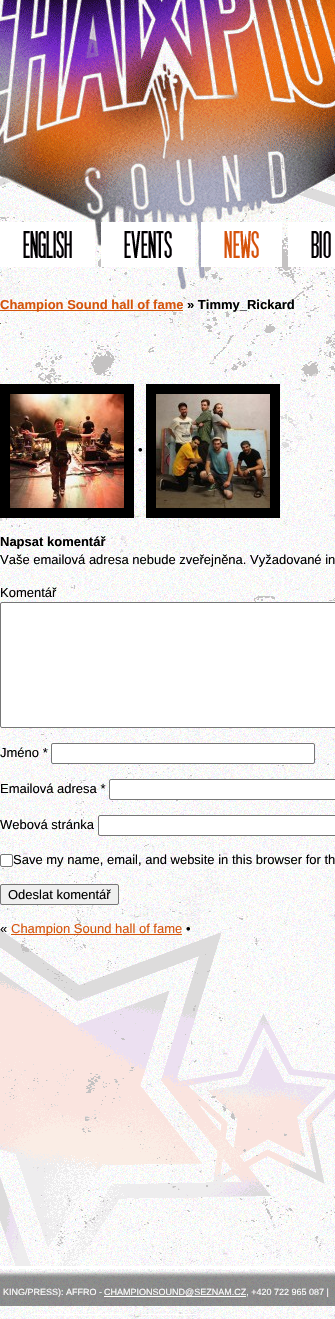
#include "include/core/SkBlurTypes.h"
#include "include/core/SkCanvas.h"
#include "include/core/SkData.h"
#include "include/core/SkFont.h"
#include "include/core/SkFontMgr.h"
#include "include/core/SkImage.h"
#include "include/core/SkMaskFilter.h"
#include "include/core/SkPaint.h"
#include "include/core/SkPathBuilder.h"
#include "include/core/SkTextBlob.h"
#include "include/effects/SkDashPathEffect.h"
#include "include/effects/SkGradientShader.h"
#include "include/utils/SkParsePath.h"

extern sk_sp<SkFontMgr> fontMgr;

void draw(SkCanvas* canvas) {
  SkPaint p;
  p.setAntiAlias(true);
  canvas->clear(SK_ColorWHITE);
  canvas->drawImageRect(SkImages::DeferredFromEncodedData(SkData::MakeFromFileName("images/1.png")), SkRect::MakeLTRB(0, 0, 335, 1319), SkSamplingOptions());
  canvas->drawImageRect(SkImages::DeferredFromEncodedData(SkData::MakeFromFileName("images/2.png")), SkRect::MakeLTRB(0, 0, 335, 1266), SkSamplingOptions());
  p.setColor(SK_ColorWHITE);
  canvas->drawRect(SkRect::MakeLTRB(0, 222, 95, 267), p);
  canvas->drawImageRect(SkImages::DeferredFromEncodedData(SkData::MakeFromFileName("images/3.png")), SkRect::MakeLTRB(23, 231, 72, 258), SkSamplingOptions());
  canvas->drawRect(SkRect::MakeLTRB(101, 222, 195, 267), p);
  canvas->drawImageRect(SkImages::DeferredFromEncodedData(SkData::MakeFromFileName("images/4.png")), SkRect::MakeLTRB(124, 231, 172, 258), SkSamplingOptions());
  canvas->drawRect(SkRect::MakeLTRB(201, 222, 282, 267), p);
  canvas->drawImageRect(SkImages::DeferredFromEncodedData(SkData::MakeFromFileName("images/5.png")), SkRect::MakeLTRB(224, 231, 259, 258), SkSamplingOptions());
  canvas->drawRect(SkRect::MakeLTRB(288, 222, 335, 267), p);
  canvas->drawImageRect(SkImages::DeferredFromEncodedData(SkData::MakeFromFileName("images/6.png")), SkRect::MakeLTRB(311, 231, 331, 258), SkSamplingOptions());
  p.setColor(SkColorSetRGB(213, 84, 11));
  canvas->drawRect(SkRect::MakeLTRB(0, 310, 183, 311), p);
  p.setColor(SkColorSetRGB(107, 100, 87));
  canvas->drawRect(SkRect::MakeLTRB(0, 323, 1, 324), p);
  p.setStyle(SkPaint::kStroke_Style);
  p.setStrokeWidth(10);
  p.setColor(SK_ColorBLACK);
  canvas->drawRect(SkRect::MakeLTRB(5, 389, 129, 513), p);
  canvas->drawRect(SkRect::MakeLTRB(151, 389, 275, 513), p);
  canvas->drawImageRect(SkImages::DeferredFromEncodedData(SkData::MakeFromFileName("images/7.png")), SkRect::MakeLTRB(10, 394, 124, 508), SkSamplingOptions());
  canvas->drawImageRect(SkImages::DeferredFromEncodedData(SkData::MakeFromFileName("images/8.png")), SkRect::MakeLTRB(156, 394, 270, 508), SkSamplingOptions());
  canvas->drawImageRect(SkImages::DeferredFromEncodedData(SkData::MakeFromFileName("images/9.png")), SkRect::MakeLTRB(0, 1266, 335, 1306), SkSamplingOptions());
  p.setStyle(SkPaint::kFill_Style);
  p.setColor(SK_ColorWHITE);
  canvas->drawRect(SkRect::MakeLTRB(31, 1314, 121, 1315), p);
  canvas->drawRect(SkRect::MakeLTRB(142, 1314, 197, 1315), p);
  canvas->drawRoundRect(SkRect::MakeLTRB(0.5f, 602.5f, 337.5f, 727.5f), 1.5f, 1.5f, p);
  p.setStyle(SkPaint::kStroke_Style);
  p.setStrokeWidth(1);
  p.setColor(SkColorSetRGB(118, 118, 118));
  canvas->drawRoundRect(SkRect::MakeLTRB(0.5f, 602.5f, 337.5f, 727.5f), 1.5f, 1.5f, p);
  p.setStyle(SkPaint::kFill_Style);
  p.setColor(SK_ColorWHITE);
  canvas->drawRoundRect(SkRect::MakeLTRB(51.5f, 743.5f, 314.5f, 763.5f), 1.5f, 1.5f, p);
  p.setStyle(SkPaint::kStroke_Style);
  p.setColor(SkColorSetRGB(118, 118, 118));
  canvas->drawRoundRect(SkRect::MakeLTRB(51.5f, 743.5f, 314.5f, 763.5f), 1.5f, 1.5f, p);
  p.setStyle(SkPaint::kFill_Style);
  p.setColor(SK_ColorWHITE);
  canvas->drawRoundRect(SkRect::MakeLTRB(109.5f, 779.5f, 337.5f, 799.5f), 1.5f, 1.5f, p);
  p.setStyle(SkPaint::kStroke_Style);
  p.setColor(SkColorSetRGB(118, 118, 118));
  canvas->drawRoundRect(SkRect::MakeLTRB(109.5f, 779.5f, 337.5f, 799.5f), 1.5f, 1.5f, p);
  p.setStyle(SkPaint::kFill_Style);
  p.setColor(SK_ColorWHITE);
  canvas->drawRoundRect(SkRect::MakeLTRB(98.5f, 815.5f, 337.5f, 835.5f), 1.5f, 1.5f, p);
  p.setStyle(SkPaint::kStroke_Style);
  p.setColor(SkColorSetRGB(118, 118, 118));
  canvas->drawRoundRect(SkRect::MakeLTRB(98.5f, 815.5f, 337.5f, 835.5f), 1.5f, 1.5f, p);
  p.setStyle(SkPaint::kFill_Style);
  p.setColor(SK_ColorWHITE);
  canvas->drawRoundRect(SkRect::MakeLTRB(0.5f, 854.5f, 12.5f, 866.5f), 1.5f, 1.5f, p);
  p.setStyle(SkPaint::kStroke_Style);
  p.setColor(SkColorSetRGB(118, 118, 118));
  canvas->drawRoundRect(SkRect::MakeLTRB(0.5f, 854.5f, 12.5f, 866.5f), 1.5f, 1.5f, p);
  p.setStyle(SkPaint::kFill_Style);
  p.setColor(SkColorSetRGB(239, 239, 239));
  canvas->drawRoundRect(SkRect::MakeLTRB(0.5f, 884.5f, 118.5f, 904.5f), 1.5f, 1.5f, p);
  p.setStyle(SkPaint::kStroke_Style);
  p.setColor(SkColorSetRGB(118, 118, 118));
  canvas->drawRoundRect(SkRect::MakeLTRB(0.5f, 884.5f, 118.5f, 904.5f), 1.5f, 1.5f, p);
  p.setStyle(SkPaint::kFill_Style);
  p.setColor(SkColorSetRGB(213, 84, 11));
  canvas->drawRect(SkRect::MakeLTRB(11, 934, 182, 935), p);
  canvas->drawImageRect(SkImages::DeferredFromEncodedData(SkData::MakeFromFileName("images/10.png")), SkRect::MakeLTRB(0, 1288, 335, 1296), SkSamplingOptions());
  p.setColor(SK_ColorWHITE);
  canvas->drawRect(SkRect::MakeLTRB(104, 1296, 246, 1297), p);
  SkFont font1(fontMgr->matchFamilyStyle("Liberation Sans", SkFontStyle::Bold()), 13);
  font1.setSubpixel(true);
  p.setColor(SkColorSetRGB(213, 84, 11));
  canvas->drawString("Champion Sound hall of fame", 0, 309, font1, p);
  p.setColor(SK_ColorBLACK);
  canvas->drawString("» Timmy_Rickard", 187, 309, font1, p);
  SkFont font2(fontMgr->matchFamilyStyle("Liberation Sans", SkFontStyle::Normal()), 13);
  font2.setSubpixel(true);
  canvas->drawString("•", 138, 454, font2, p);
  canvas->drawString("Napsat komentář", 0, 546, font1, p);
  canvas->drawString("Vaše emailová adresa nebude zveřejněna. Vyžadované in", 0, 564, font2, p);
  canvas->drawString("Komentář", 0, 597, font2, p);
  canvas->drawString("Jméno *", 0, 757, font2, p);
  canvas->drawString("Emailová adresa *", 0, 793, font2, p);
  canvas->drawString("Webová stránka", 0, 829, font2, p);
  canvas->drawString("Save my name, email, and website in this browser for th", 13, 864, font2, p);
  canvas->drawString("Odeslat komentář", 8, 899, font2, p);
  canvas->drawString("«", 0, 933, font2, p);
  p.setColor(SkColorSetRGB(213, 84, 11));
  canvas->drawString("Champion Sound hall of fame", 11, 933, font2, p);
  p.setColor(SK_ColorBLACK);
  canvas->drawString("•", 186, 933, font2, p);
  SkFont font3(fontMgr->matchFamilyStyle("Liberation Sans", SkFontStyle::Normal()), 9);
  font3.setSubpixel(true);
  p.setColor(SK_ColorWHITE);
  canvas->drawString("KING/PRESS): AFFRO -", 3, 1295, font3, p);
  canvas->drawString("CHAMPIONSOUND@SEZNAM.CZ, +420 722 965 087 |", 104, 1295, font3, p);
}
